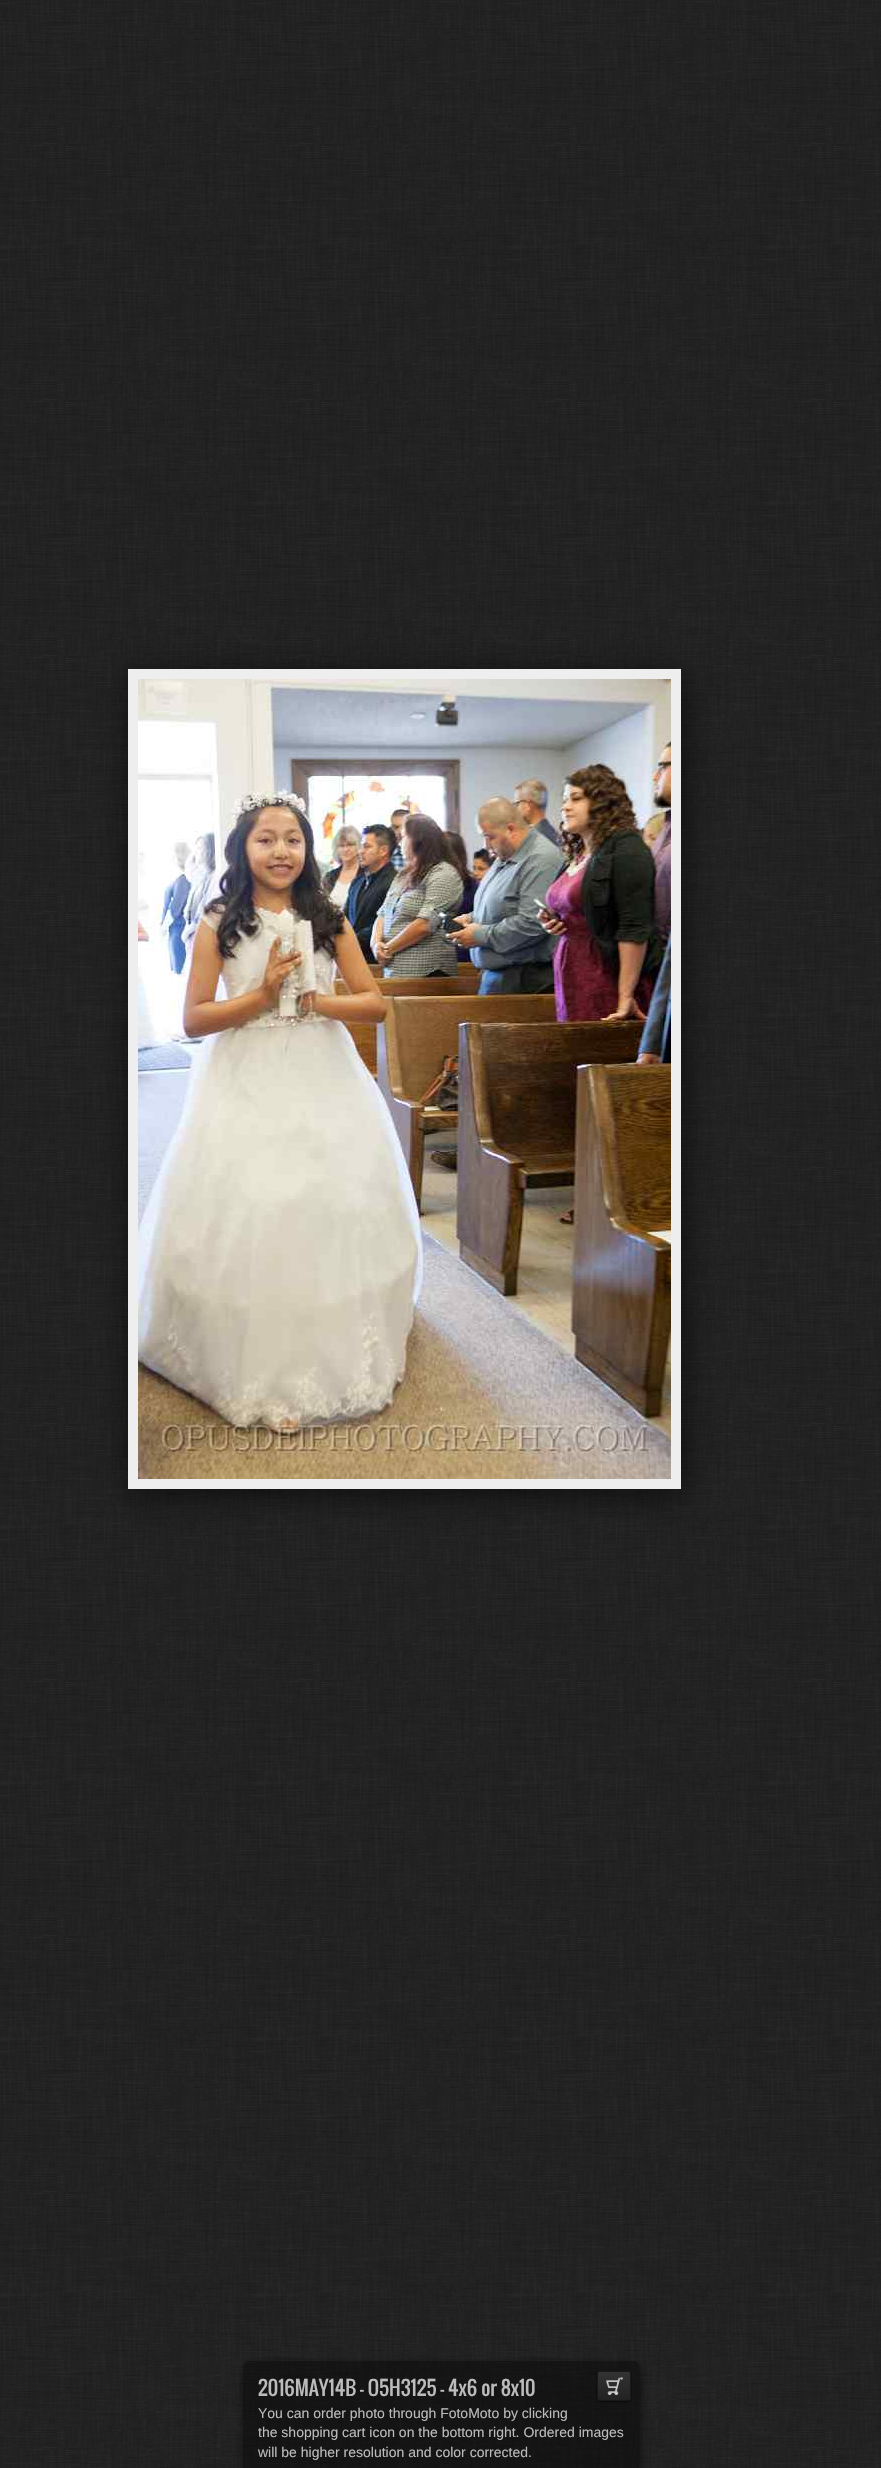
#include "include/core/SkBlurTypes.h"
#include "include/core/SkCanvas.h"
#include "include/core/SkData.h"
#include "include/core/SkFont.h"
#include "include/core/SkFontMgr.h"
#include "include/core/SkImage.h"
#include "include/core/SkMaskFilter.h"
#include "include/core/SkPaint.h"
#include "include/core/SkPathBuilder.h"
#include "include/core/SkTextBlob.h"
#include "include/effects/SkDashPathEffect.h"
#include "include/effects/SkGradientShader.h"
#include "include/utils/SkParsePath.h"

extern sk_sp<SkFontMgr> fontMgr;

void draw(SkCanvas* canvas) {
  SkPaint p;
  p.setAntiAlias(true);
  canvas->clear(SkColorSetRGB(34, 34, 34));
  canvas->drawImageRect(SkImages::DeferredFromEncodedData(SkData::MakeFromFileName("images/1.png")), SkRect::MakeLTRB(0, 0, 881, 2468), SkSamplingOptions());
  p.setColor(SkColorSetARGB(153, 0, 0, 0));
  p.setMaskFilter(SkMaskFilter::MakeBlur(kNormal_SkBlurStyle, 16));
  canvas->drawRect(SkRect::MakeLTRB(131, 675, 684, 1495), p);
  p.setMaskFilter(nullptr);
  p.setColor(SkColorSetRGB(238, 238, 238));
  canvas->drawRect(SkRect::MakeLTRB(128, 669, 681, 1489), p);
  canvas->drawImageRect(SkImages::DeferredFromEncodedData(SkData::MakeFromFileName("images/2.png")), SkRect::MakeLTRB(138, 679, 671, 1479), SkSamplingOptions());
  canvas->save();
  canvas->clipPath(SkPathBuilder(SkPathFillType::kEvenOdd).moveTo(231, 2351).lineTo(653, 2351).lineTo(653, 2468).lineTo(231, 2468).close().moveTo(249, 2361).lineTo(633, 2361).cubicTo(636.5f, 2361, 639, 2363.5f, 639, 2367).lineTo(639, 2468).lineTo(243, 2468).lineTo(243, 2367).cubicTo(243, 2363.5f, 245.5f, 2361, 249, 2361).close().detach(), true);
  p.setColor(SkColorSetARGB(153, 0, 0, 0));
  p.setMaskFilter(SkMaskFilter::MakeBlur(kNormal_SkBlurStyle, 4));
  canvas->drawRoundRect(SkRect::MakeLTRB(244, 2364, 640, 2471), 6, 6, p);
  p.setMaskFilter(nullptr);
  canvas->restore();
  p.setColor(SkColorSetARGB(102, 0, 0, 0));
  canvas->drawPath(SkPathBuilder().moveTo(249, 2361).lineTo(633, 2361).cubicTo(636.5f, 2361, 639, 2363.5f, 639, 2367).lineTo(639, 2468).lineTo(243, 2468).lineTo(243, 2367).cubicTo(243, 2363.5f, 245.5f, 2361, 249, 2361).close().detach(), p);
  p.setColor(SkColorSetARGB(153, 0, 0, 0));
  p.setMaskFilter(SkMaskFilter::MakeBlur(kNormal_SkBlurStyle, 1));
  canvas->drawRoundRect(SkRect::MakeLTRB(597, 2372, 631, 2402), 2, 2, p);
  p.setMaskFilter(nullptr);
  {
    const SkColor colors[] = {SkColorSetRGB(51, 51, 51), SkColorSetRGB(34, 34, 34)};
    const float stops[] = {0, 1};
    const SkPoint ends[] = {{614, 2372}, {614, 2400}};
    p.setShader(SkGradientShader::MakeLinear(ends, colors, stops, 2, SkTileMode::kClamp));
    p.setAlpha(255);
  }
  canvas->drawRoundRect(SkRect::MakeLTRB(598, 2372, 630, 2400), 1, 1, p);
  p.setStyle(SkPaint::kStroke_Style);
  p.setStrokeWidth(1);
  p.setShader(nullptr);
  p.setColor(SkColorSetRGB(24, 24, 24));
  canvas->drawRoundRect(SkRect::MakeLTRB(597.5f, 2371.5f, 630.5f, 2400.5f), 1.5f, 1.5f, p);
  canvas->drawImageRect(SkImages::DeferredFromEncodedData(SkData::MakeFromFileName("images/3.png")), SkRect::MakeLTRB(606, 2377, 623, 2395), SkSamplingOptions());
  SkFont font1(fontMgr->matchFamilyStyle("Oswald", SkFontStyle::Normal()), 19.6f);
  font1.setSubpixel(true);
  p.setStyle(SkPaint::kFill_Style);
  p.setColor(SkColorSetRGB(187, 187, 187));
  canvas->drawString("2016MAY14B - O5H3125 - 4x6 or 8x10", 258, 2396, font1, p);
  SkFont font2(fontMgr->matchFamilyStyle("Liberation Sans", SkFontStyle::Normal()), 14);
  font2.setSubpixel(true);
  canvas->drawString("You can order photo through FotoMoto by clicking", 258, 2418, font2, p);
  canvas->drawString("the shopping cart icon on the bottom right. Ordered images", 258, 2437, font2, p);
  canvas->drawString("will be higher resolution and color corrected.", 258, 2457, font2, p);
}
